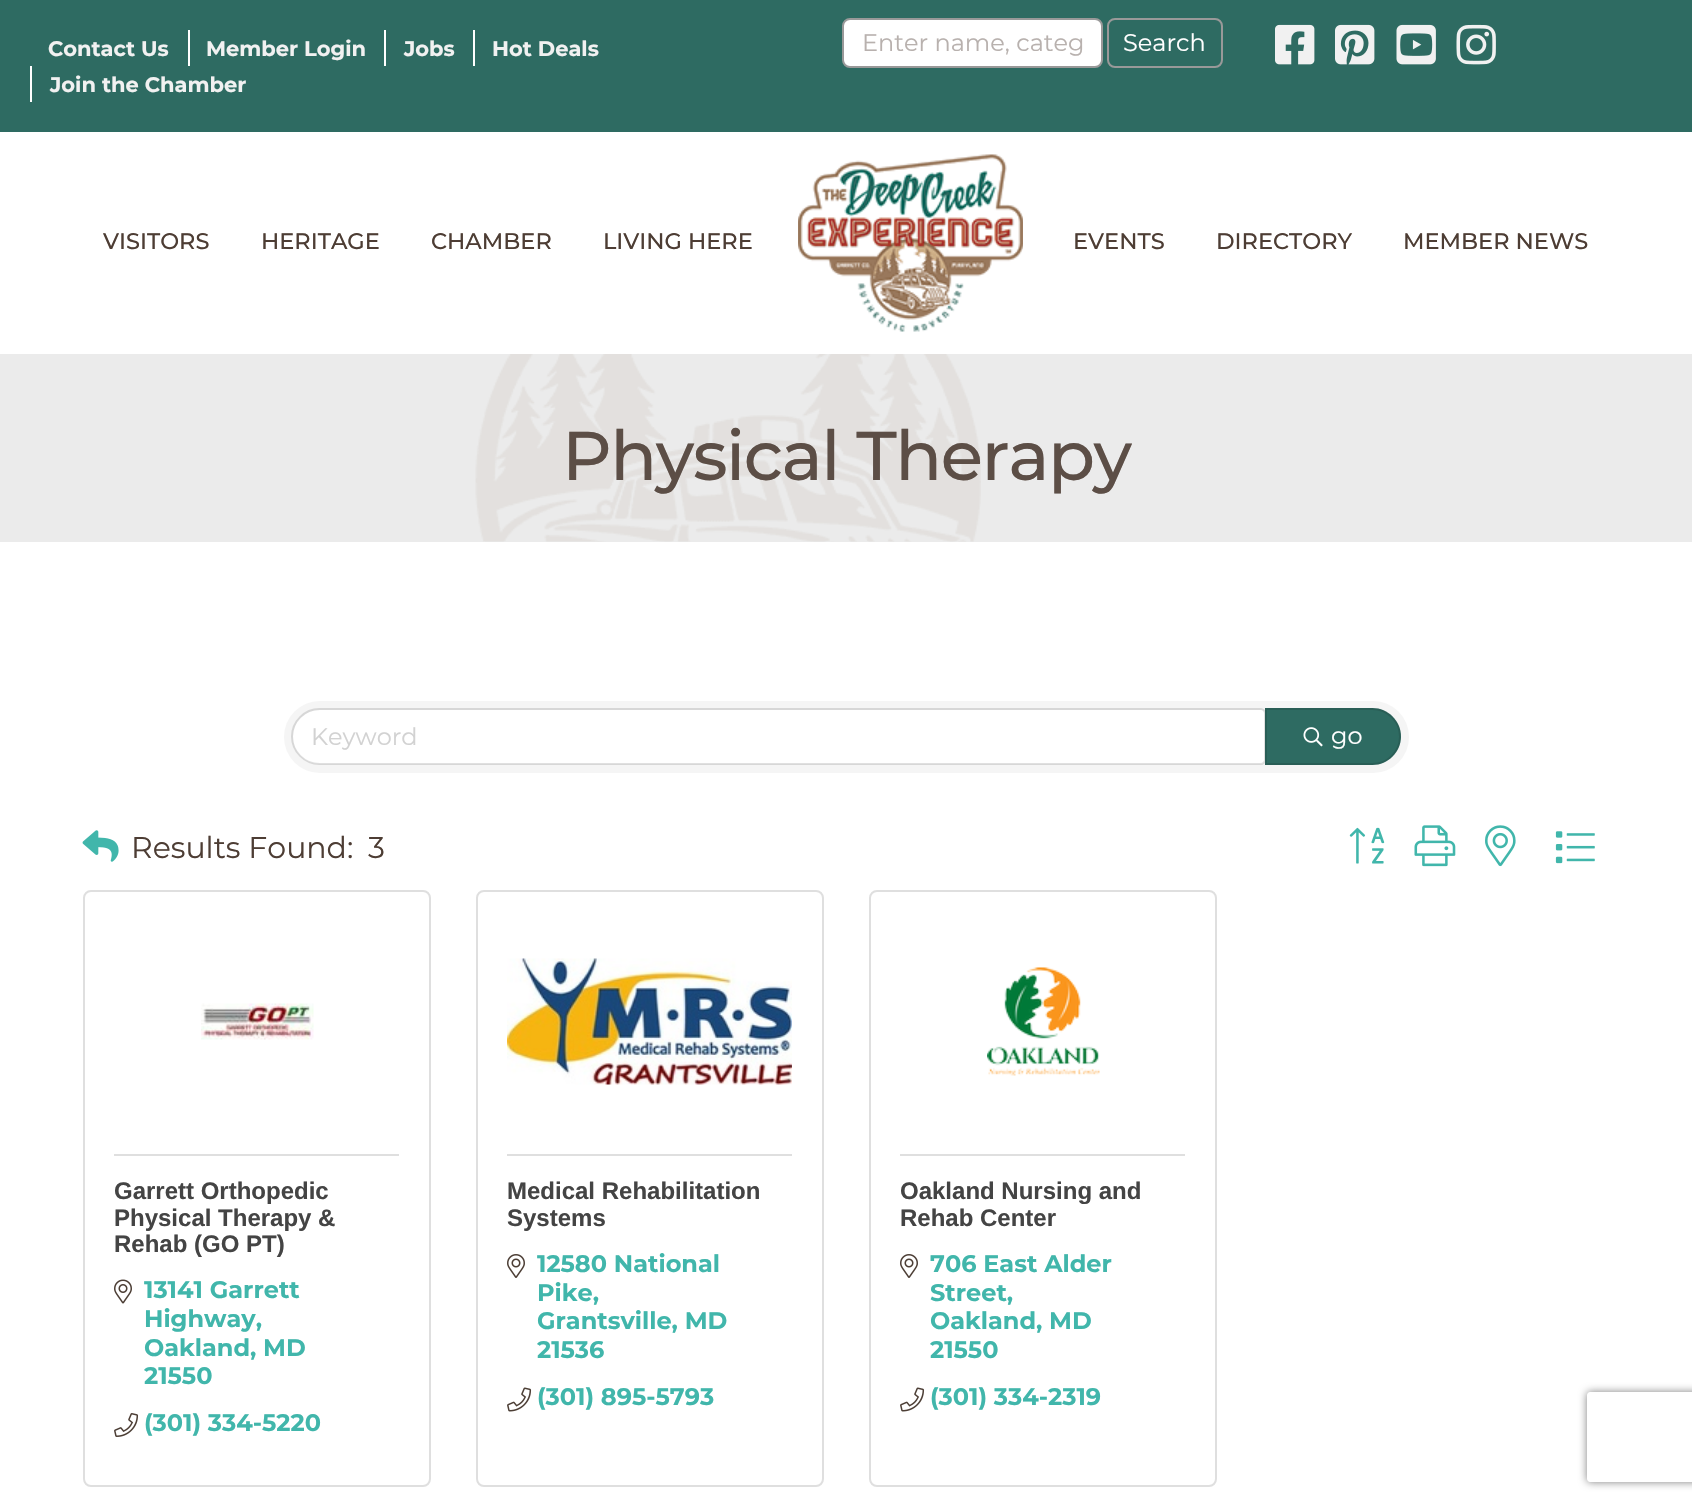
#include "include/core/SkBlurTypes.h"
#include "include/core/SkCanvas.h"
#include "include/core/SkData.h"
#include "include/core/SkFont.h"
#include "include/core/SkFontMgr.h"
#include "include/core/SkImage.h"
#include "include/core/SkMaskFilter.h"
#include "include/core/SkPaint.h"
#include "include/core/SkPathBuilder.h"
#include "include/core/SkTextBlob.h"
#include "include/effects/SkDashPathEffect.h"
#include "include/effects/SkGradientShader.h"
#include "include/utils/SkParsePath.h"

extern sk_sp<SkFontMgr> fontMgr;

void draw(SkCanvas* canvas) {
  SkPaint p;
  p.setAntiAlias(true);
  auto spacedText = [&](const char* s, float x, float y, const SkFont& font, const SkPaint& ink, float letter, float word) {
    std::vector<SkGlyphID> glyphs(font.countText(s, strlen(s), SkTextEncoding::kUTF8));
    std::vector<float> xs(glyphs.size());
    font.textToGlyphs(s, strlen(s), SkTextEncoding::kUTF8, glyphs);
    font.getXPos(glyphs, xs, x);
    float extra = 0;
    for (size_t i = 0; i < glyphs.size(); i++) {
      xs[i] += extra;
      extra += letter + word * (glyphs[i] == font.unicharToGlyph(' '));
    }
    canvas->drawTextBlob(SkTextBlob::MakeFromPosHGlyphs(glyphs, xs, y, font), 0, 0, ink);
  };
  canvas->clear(SK_ColorWHITE);
  p.setColor(SkColorSetRGB(235, 235, 235));
  canvas->drawRect(SkRect::MakeLTRB(0, 354, 1692, 542), p);
  p.setColor(SkColorSetRGB(46, 107, 98));
  canvas->drawRect(SkRect::MakeLTRB(0, 0, 1692, 132), p);
  p.setColor(SK_ColorWHITE);
  canvas->drawRect(SkRect::MakeLTRB(188, 30, 190, 66), p);
  canvas->drawRect(SkRect::MakeLTRB(384, 30, 386, 66), p);
  canvas->drawRect(SkRect::MakeLTRB(473, 30, 475, 66), p);
  canvas->drawRect(SkRect::MakeLTRB(30, 66, 32, 102), p);
  canvas->drawRoundRect(SkRect::MakeLTRB(843, 19, 1102, 67), 7, 7, p);
  p.setStyle(SkPaint::kStroke_Style);
  p.setStrokeWidth(2);
  p.setColor(SkColorSetRGB(153, 153, 153));
  canvas->drawRoundRect(SkRect::MakeLTRB(843, 19, 1102, 67), 7, 7, p);
  canvas->drawRoundRect(SkRect::MakeLTRB(1108, 19, 1222, 67), 7, 7, p);
  canvas->drawImageRect(SkImages::DeferredFromEncodedData(SkData::MakeFromFileName("images/1.png")), SkRect::MakeLTRB(1275, 24, 1315, 65), SkSamplingOptions());
  canvas->drawImageRect(SkImages::DeferredFromEncodedData(SkData::MakeFromFileName("images/2.png")), SkRect::MakeLTRB(1335, 24, 1375, 65), SkSamplingOptions());
  canvas->drawImageRect(SkImages::DeferredFromEncodedData(SkData::MakeFromFileName("images/3.png")), SkRect::MakeLTRB(1396, 24, 1436, 65), SkSamplingOptions());
  canvas->drawImageRect(SkImages::DeferredFromEncodedData(SkData::MakeFromFileName("images/4.png")), SkRect::MakeLTRB(1456, 24, 1496, 65), SkSamplingOptions());
  canvas->drawImageRect(SkImages::DeferredFromEncodedData(SkData::MakeFromFileName("images/5.png")), SkRect::MakeLTRB(798, 154, 1023, 332), SkSamplingOptions());
  canvas->drawImageRect(SkImages::DeferredFromEncodedData(SkData::MakeFromFileName("images/6.png")), SkRect::MakeLTRB(475, 354, 981, 542), SkSamplingOptions());
  p.setStyle(SkPaint::kFill_Style);
  p.setColor(SkColorSetRGB(245, 245, 245));
  canvas->drawRoundRect(SkRect::MakeLTRB(284, 701, 1409, 773), 36, 36, p);
  p.setColor(SK_ColorWHITE);
  canvas->drawPath(SkPathBuilder().moveTo(320, 710).lineTo(1262, 710).cubicTo(1263.5f, 710, 1265, 711.5f, 1265, 713).lineTo(1265, 761).cubicTo(1265, 762.5f, 1263.5f, 764, 1262, 764).lineTo(320, 764).cubicTo(305, 764, 293, 752, 293, 737).cubicTo(293, 722, 305, 710, 320, 710).close().detach(), p);
  p.setStyle(SkPaint::kStroke_Style);
  p.setColor(SkColorSetARGB(31, 0, 0, 0));
  canvas->drawPath(SkPathBuilder().moveTo(319.5f, 709).lineTo(1261, 709).cubicTo(1263, 709, 1265, 711, 1265, 713).lineTo(1265, 760).cubicTo(1265, 762, 1263, 764, 1261, 764).lineTo(319.5f, 764).cubicTo(304.5f, 764, 292, 751.5f, 292, 736.5f).cubicTo(292, 721.5f, 304.5f, 709, 319.5f, 709).close().detach(), p);
  p.setStyle(SkPaint::kFill_Style);
  p.setColor(SkColorSetRGB(46, 107, 98));
  canvas->drawPath(SkPathBuilder().moveTo(1265, 708).lineTo(1372.5f, 708).cubicTo(1388, 708, 1401, 721, 1401, 736.5f).cubicTo(1401, 752, 1388, 765, 1372.5f, 765).lineTo(1265, 765).close().detach(), p);
  p.setStyle(SkPaint::kStroke_Style);
  p.setColor(SkColorSetARGB(31, 0, 0, 0));
  canvas->drawPath(SkPathBuilder().moveTo(1266, 709).lineTo(1372.5f, 709).cubicTo(1387.5f, 709, 1400, 721.5f, 1400, 736.5f).cubicTo(1400, 751.5f, 1387.5f, 764, 1372.5f, 764).lineTo(1266, 764).close().detach(), p);
  canvas->drawImageRect(SkImages::DeferredFromEncodedData(SkData::MakeFromFileName("images/7.png")), SkRect::MakeLTRB(1303, 727, 1323, 747), SkSamplingOptions());
  canvas->drawImageRect(SkImages::DeferredFromEncodedData(SkData::MakeFromFileName("images/8.png")), SkRect::MakeLTRB(82, 830, 119, 862), SkSamplingOptions());
  canvas->drawImageRect(SkImages::DeferredFromEncodedData(SkData::MakeFromFileName("images/9.png")), SkRect::MakeLTRB(1349, 827, 1385, 864), SkSamplingOptions());
  canvas->drawImageRect(SkImages::DeferredFromEncodedData(SkData::MakeFromFileName("images/10.png")), SkRect::MakeLTRB(1414, 825, 1456, 867), SkSamplingOptions());
  canvas->drawImageRect(SkImages::DeferredFromEncodedData(SkData::MakeFromFileName("images/11.png")), SkRect::MakeLTRB(1485, 825, 1516, 867), SkSamplingOptions());
  canvas->drawImageRect(SkImages::DeferredFromEncodedData(SkData::MakeFromFileName("images/12.png")), SkRect::MakeLTRB(1555, 831, 1595, 864), SkSamplingOptions());
  p.setColor(SkColorSetRGB(223, 223, 223));
  canvas->drawRoundRect(SkRect::MakeLTRB(84, 891, 430, 1486), 7, 7, p);
  canvas->drawImageRect(SkImages::DeferredFromEncodedData(SkData::MakeFromFileName("images/13.png")), SkRect::MakeLTRB(201, 1003, 314, 1040), SkSamplingOptions());
  p.setStyle(SkPaint::kFill_Style);
  canvas->drawRect(SkRect::MakeLTRB(114, 1154, 399, 1156), p);
  canvas->drawImageRect(SkImages::DeferredFromEncodedData(SkData::MakeFromFileName("images/14.png")), SkRect::MakeLTRB(114, 1279, 132, 1304), SkSamplingOptions());
  canvas->drawImageRect(SkImages::DeferredFromEncodedData(SkData::MakeFromFileName("images/15.png")), SkRect::MakeLTRB(114, 1413, 139, 1437), SkSamplingOptions());
  p.setStyle(SkPaint::kStroke_Style);
  canvas->drawRoundRect(SkRect::MakeLTRB(477, 891, 823, 1486), 7, 7, p);
  canvas->drawImageRect(SkImages::DeferredFromEncodedData(SkData::MakeFromFileName("images/16.png")), SkRect::MakeLTRB(507, 958, 792, 1085), SkSamplingOptions());
  p.setStyle(SkPaint::kFill_Style);
  canvas->drawRect(SkRect::MakeLTRB(507, 1154, 792, 1156), p);
  canvas->drawImageRect(SkImages::DeferredFromEncodedData(SkData::MakeFromFileName("images/17.png")), SkRect::MakeLTRB(507, 1254, 525, 1278), SkSamplingOptions());
  canvas->drawImageRect(SkImages::DeferredFromEncodedData(SkData::MakeFromFileName("images/18.png")), SkRect::MakeLTRB(507, 1387, 532, 1412), SkSamplingOptions());
  p.setStyle(SkPaint::kStroke_Style);
  canvas->drawRoundRect(SkRect::MakeLTRB(870, 891, 1216, 1486), 7, 7, p);
  canvas->drawImageRect(SkImages::DeferredFromEncodedData(SkData::MakeFromFileName("images/19.png")), SkRect::MakeLTRB(987, 967, 1100, 1076), SkSamplingOptions());
  p.setStyle(SkPaint::kFill_Style);
  canvas->drawRect(SkRect::MakeLTRB(900, 1154, 1185, 1156), p);
  canvas->drawImageRect(SkImages::DeferredFromEncodedData(SkData::MakeFromFileName("images/17.png")), SkRect::MakeLTRB(900, 1254, 918, 1278), SkSamplingOptions());
  canvas->drawImageRect(SkImages::DeferredFromEncodedData(SkData::MakeFromFileName("images/18.png")), SkRect::MakeLTRB(900, 1387, 925, 1412), SkSamplingOptions());
  canvas->save();
  canvas->clipPath(SkPathBuilder(SkPathFillType::kEvenOdd).moveTo(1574, 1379).lineTo(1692, 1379).lineTo(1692, 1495).lineTo(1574, 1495).close().moveTo(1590, 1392).lineTo(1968, 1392).cubicTo(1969.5f, 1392, 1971, 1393.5f, 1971, 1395).lineTo(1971, 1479).cubicTo(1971, 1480.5f, 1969.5f, 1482, 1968, 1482).lineTo(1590, 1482).cubicTo(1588.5f, 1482, 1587, 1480.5f, 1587, 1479).lineTo(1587, 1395).cubicTo(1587, 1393.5f, 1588.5f, 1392, 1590, 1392).close().detach(), true);
  p.setColor(SkColorSetRGB(128, 128, 128));
  p.setMaskFilter(SkMaskFilter::MakeBlur(kNormal_SkBlurStyle, 4));
  canvas->drawRoundRect(SkRect::MakeLTRB(1587, 1392, 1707, 1482), 3, 3, p);
  p.setMaskFilter(nullptr);
  canvas->restore();
  SkFont font1(fontMgr->matchFamilyStyle("Montserrat", SkFontStyle::Bold()), 21);
  font1.setSubpixel(true);
  p.setColor(SkColorSetRGB(241, 241, 241));
  canvas->drawString("Contact Us", 48, 56, font1, p);
  canvas->drawString("Member Login", 206, 56, font1, p);
  canvas->drawString("Jobs", 404, 56, font1, p);
  canvas->drawString("Hot Deals", 492, 56, font1, p);
  canvas->drawString("Join the Chamber", 50, 92, font1, p);
  SkFont font2(fontMgr->matchFamilyStyle("Montserrat", SkFontStyle::Normal()), 24);
  font2.setSubpixel(true);
  p.setColor(SkColorSetRGB(184, 177, 174));
  canvas->drawString("Enter name, categ", 862, 51, font2, p);
  p.setColor(SK_ColorWHITE);
  canvas->drawString("Search", 1123, 51, font2, p);
  SkFont font3(fontMgr->matchFamilyStyle("Montserrat", SkFontStyle(500, SkFontStyle::kNormal_Width, SkFontStyle::kUpright_Slant)), 22.5f);
  font3.setSubpixel(true);
  p.setColor(SkColorSetRGB(77, 61, 52));
  canvas->drawString("VISITORS", 103, 249, font3, p);
  canvas->drawString("HERITAGE", 261, 249, font3, p);
  canvas->drawString("CHAMBER", 431, 249, font3, p);
  canvas->drawString("LIVING HERE", 603, 249, font3, p);
  canvas->drawString("EVENTS", 1073, 249, font3, p);
  canvas->drawString("DIRECTORY", 1216, 249, font3, p);
  canvas->drawString("MEMBER NEWS", 1403, 249, font3, p);
  SkFont font4(fontMgr->matchFamilyStyle("Montserrat", SkFontStyle(500, SkFontStyle::kNormal_Width, SkFontStyle::kUpright_Slant)), 69);
  font4.setSubpixel(true);
  p.setColor(SkColorSetRGB(92, 78, 70));
  spacedText("Physical Therapy", 562, 480, font4, p, -1.5f, 0);
  p.setColor(SkColorSetRGB(210, 210, 210));
  canvas->drawString("Keyword", 311, 745, font2, p);
  p.setColor(SK_ColorWHITE);
  canvas->drawString("go", 1331, 744, font2, p);
  SkFont font5(fontMgr->matchFamilyStyle("Montserrat", SkFontStyle::Normal()), 30);
  font5.setSubpixel(true);
  p.setColor(SkColorSetRGB(77, 61, 52));
  canvas->drawString("Results Found:", 131, 858, font5, p);
  canvas->drawString("3", 368, 858, font5, p);
  SkFont font6(fontMgr->matchFamilyStyle("Liberation Sans", SkFontStyle::Bold()), 24);
  font6.setSubpixel(true);
  p.setColor(SkColorSetRGB(68, 68, 68));
  canvas->drawString("Garrett Orthopedic", 114, 1199, font6, p);
  canvas->drawString("Physical Therapy &", 114, 1226, font6, p);
  canvas->drawString("Rehab (GO PT)", 114, 1252, font6, p);
  SkFont font7(fontMgr->matchFamilyStyle("Montserrat", SkFontStyle::Bold()), 24);
  font7.setSubpixel(true);
  p.setColor(SkColorSetRGB(65, 182, 171));
  canvas->drawString("13141 Garrett", 144, 1298, font7, p);
  canvas->drawString("Highway,", 144, 1327, font7, p);
  canvas->drawString("Oakland, MD", 144, 1356, font7, p);
  canvas->drawString("21550", 144, 1384, font7, p);
  canvas->drawString("(301) 334-5220", 144, 1431, font7, p);
  p.setColor(SkColorSetRGB(68, 68, 68));
  canvas->drawString("Medical Rehabilitation", 507, 1199, font6, p);
  canvas->drawString("Systems", 507, 1226, font6, p);
  p.setColor(SkColorSetRGB(65, 182, 171));
  canvas->drawString("12580 National", 537, 1272, font7, p);
  canvas->drawString("Pike,", 537, 1301, font7, p);
  canvas->drawString("Grantsville, MD", 537, 1329, font7, p);
  canvas->drawString("21536", 537, 1358, font7, p);
  canvas->drawString("(301) 895-5793", 537, 1405, font7, p);
  p.setColor(SkColorSetRGB(68, 68, 68));
  canvas->drawString("Oakland Nursing and", 900, 1199, font6, p);
  canvas->drawString("Rehab Center", 900, 1226, font6, p);
  p.setColor(SkColorSetRGB(65, 182, 171));
  canvas->drawString("706 East Alder", 930, 1272, font7, p);
  canvas->drawString("Street,", 930, 1301, font7, p);
  canvas->drawString("Oakland, MD", 930, 1329, font7, p);
  canvas->drawString("21550", 930, 1358, font7, p);
  canvas->drawString("(301) 334-2319", 930, 1405, font7, p);
}
